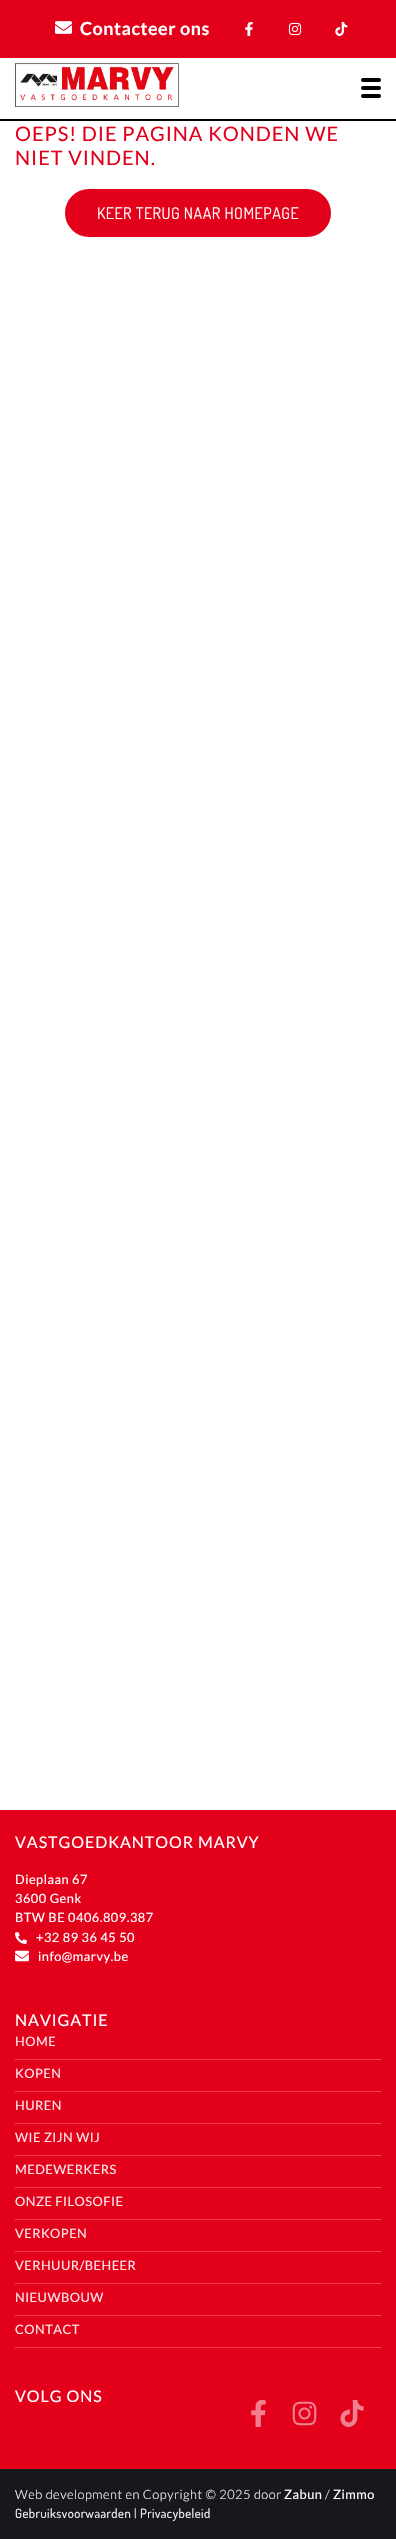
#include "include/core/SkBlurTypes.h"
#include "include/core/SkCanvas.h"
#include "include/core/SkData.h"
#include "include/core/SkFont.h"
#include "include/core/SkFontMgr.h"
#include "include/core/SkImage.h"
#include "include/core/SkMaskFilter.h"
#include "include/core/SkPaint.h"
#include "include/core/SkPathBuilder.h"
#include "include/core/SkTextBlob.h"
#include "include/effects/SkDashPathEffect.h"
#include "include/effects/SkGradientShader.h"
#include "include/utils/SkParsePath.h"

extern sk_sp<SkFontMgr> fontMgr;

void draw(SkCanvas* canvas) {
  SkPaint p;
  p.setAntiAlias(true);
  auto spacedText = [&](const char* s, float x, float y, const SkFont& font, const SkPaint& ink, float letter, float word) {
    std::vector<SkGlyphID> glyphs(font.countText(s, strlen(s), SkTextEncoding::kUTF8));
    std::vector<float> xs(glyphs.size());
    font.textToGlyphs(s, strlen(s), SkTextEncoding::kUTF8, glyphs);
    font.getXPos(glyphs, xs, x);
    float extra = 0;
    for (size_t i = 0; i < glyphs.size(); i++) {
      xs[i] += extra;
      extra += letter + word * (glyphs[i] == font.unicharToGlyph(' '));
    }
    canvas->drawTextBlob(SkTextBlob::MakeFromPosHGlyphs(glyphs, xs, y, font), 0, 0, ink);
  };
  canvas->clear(SK_ColorWHITE);
  p.setColor(SkColorSetRGB(227, 0, 27));
  canvas->drawRect(SkRect::MakeLTRB(0, 0, 396, 58), p);
  canvas->drawImageRect(SkImages::DeferredFromEncodedData(SkData::MakeFromFileName("images/1.png")), SkRect::MakeLTRB(55, 21, 72, 34), SkSamplingOptions());
  canvas->drawImageRect(SkImages::DeferredFromEncodedData(SkData::MakeFromFileName("images/2.png")), SkRect::MakeLTRB(245, 22, 253, 36), SkSamplingOptions());
  canvas->drawImageRect(SkImages::DeferredFromEncodedData(SkData::MakeFromFileName("images/3.png")), SkRect::MakeLTRB(288, 22, 302, 36), SkSamplingOptions());
  canvas->drawImageRect(SkImages::DeferredFromEncodedData(SkData::MakeFromFileName("images/4.png")), SkRect::MakeLTRB(335, 22, 348, 36), SkSamplingOptions());
  p.setColor(SK_ColorBLACK);
  canvas->drawRect(SkRect::MakeLTRB(0, 119, 396, 121), p);
  canvas->drawImageRect(SkImages::DeferredFromEncodedData(SkData::MakeFromFileName("images/5.png")), SkRect::MakeLTRB(15, 63, 179, 107), SkSamplingOptions());
  canvas->drawRoundRect(SkRect::MakeLTRB(361, 78, 381, 82), 2, 2, p);
  canvas->drawRoundRect(SkRect::MakeLTRB(361, 86, 381, 90), 2, 2, p);
  canvas->drawRoundRect(SkRect::MakeLTRB(361, 94, 381, 98), 2, 2, p);
  p.setColor(SkColorSetRGB(227, 0, 27));
  canvas->drawRoundRect(SkRect::MakeLTRB(65, 189, 331, 237), 24, 24, p);
  canvas->drawRect(SkRect::MakeLTRB(0, 1810, 396, 2469), p);
  canvas->drawImageRect(SkImages::DeferredFromEncodedData(SkData::MakeFromFileName("images/6.png")), SkRect::MakeLTRB(15, 1932, 27, 1944), SkSamplingOptions());
  canvas->drawImageRect(SkImages::DeferredFromEncodedData(SkData::MakeFromFileName("images/7.png")), SkRect::MakeLTRB(15, 1950, 29, 1962), SkSamplingOptions());
  p.setColor(SkColorSetRGB(234, 64, 84));
  canvas->drawRect(SkRect::MakeLTRB(15, 2059, 381, 2060), p);
  canvas->drawRect(SkRect::MakeLTRB(15, 2091, 381, 2092), p);
  canvas->drawRect(SkRect::MakeLTRB(15, 2123, 381, 2124), p);
  canvas->drawRect(SkRect::MakeLTRB(15, 2155, 381, 2156), p);
  canvas->drawRect(SkRect::MakeLTRB(15, 2187, 381, 2188), p);
  canvas->drawRect(SkRect::MakeLTRB(15, 2219, 381, 2220), p);
  canvas->drawRect(SkRect::MakeLTRB(15, 2251, 381, 2252), p);
  canvas->drawRect(SkRect::MakeLTRB(15, 2283, 381, 2284), p);
  canvas->drawRect(SkRect::MakeLTRB(15, 2315, 381, 2316), p);
  canvas->drawRect(SkRect::MakeLTRB(15, 2347, 381, 2348), p);
  canvas->drawImageRect(SkImages::DeferredFromEncodedData(SkData::MakeFromFileName("images/8.png")), SkRect::MakeLTRB(251, 2400, 266, 2427), SkSamplingOptions());
  canvas->drawImageRect(SkImages::DeferredFromEncodedData(SkData::MakeFromFileName("images/9.png")), SkRect::MakeLTRB(292, 2401, 317, 2426), SkSamplingOptions());
  canvas->drawImageRect(SkImages::DeferredFromEncodedData(SkData::MakeFromFileName("images/10.png")), SkRect::MakeLTRB(340, 2400, 364, 2427), SkSamplingOptions());
  p.setColor(SkColorSetRGB(24, 24, 28));
  canvas->drawRect(SkRect::MakeLTRB(0, 2469, 396, 2539), p);
  SkFont font1(fontMgr->matchFamilyStyle("Lato", SkFontStyle::Bold()), 18);
  font1.setSubpixel(true);
  p.setColor(SK_ColorWHITE);
  spacedText("Contacteer ons", 80, 35, font1, p, 0.5f, 0);
  SkFont font2(fontMgr->matchFamilyStyle("Lato", SkFontStyle::Normal()), 20);
  font2.setSubpixel(true);
  p.setColor(SkColorSetRGB(227, 0, 27));
  spacedText("OEPS! DIE PAGINA KONDEN WE", 15, 141, font2, p, 0.95f, 0);
  spacedText("NIET VINDEN.", 15, 165, font2, p, 0.95f, 0);
  SkFont font3(fontMgr->matchFamilyStyle("Dosis", SkFontStyle::Normal()), 16);
  font3.setSubpixel(true);
  p.setColor(SK_ColorWHITE);
  spacedText("KEER TERUG NAAR HOMEPAGE", 97, 219, font3, p, 0.5f, 0);
  SkFont font4(fontMgr->matchFamilyStyle("Lato", SkFontStyle::Normal()), 16);
  font4.setSubpixel(true);
  spacedText("VASTGOEDKANTOOR MARVY", 15, 1848, font4, p, 0.95f, 0);
  SkFont font5(fontMgr->matchFamilyStyle("Lato", SkFontStyle::Normal()), 12.8f);
  font5.setSubpixel(true);
  spacedText("Dieplaan 67", 15, 1884, font5, p, 0.5f, 0);
  spacedText("3600 Genk", 15, 1903, font5, p, 0.5f, 0);
  spacedText("BTW BE 0406.809.387", 15, 1922, font5, p, 0.5f, 0);
  spacedText("+32 89 36 45 50", 36, 1942, font5, p, 0.5f, 0);
  spacedText("info@marvy.be", 38, 1961, font5, p, 0.5f, 0);
  spacedText("NAVIGATIE", 15, 2026, font4, p, 0.95f, 0);
  p.setColor(SkColorSetRGB(252, 230, 232));
  spacedText("HOME", 15, 2046, font5, p, 0.5f, 0);
  spacedText("KOPEN", 15, 2078, font5, p, 0.5f, 0);
  spacedText("HUREN", 15, 2110, font5, p, 0.5f, 0);
  spacedText("WIE ZIJN WIJ", 15, 2142, font5, p, 0.5f, 0);
  spacedText("MEDEWERKERS", 15, 2174, font5, p, 0.5f, 0);
  spacedText("ONZE FILOSOFIE", 15, 2206, font5, p, 0.5f, 0);
  spacedText("VERKOPEN", 15, 2238, font5, p, 0.5f, 0);
  spacedText("VERHUUR/BEHEER", 15, 2270, font5, p, 0.5f, 0);
  spacedText("NIEUWBOUW", 15, 2302, font5, p, 0.5f, 0);
  spacedText("CONTACT", 15, 2334, font5, p, 0.5f, 0);
  p.setColor(SK_ColorWHITE);
  spacedText("VOLG ONS", 15, 2402, font4, p, 0.95f, 0);
  SkFont font6(fontMgr->matchFamilyStyle("Lato", SkFontStyle(300, SkFontStyle::kNormal_Width, SkFontStyle::kUpright_Slant)), 12.8f);
  font6.setSubpixel(true);
  spacedText("Web development en Copyright © 2025 door", 15, 2499, font6, p, 0.5f, 0);
  spacedText("Zabun", 284, 2499, font5, p, 0.5f, 0);
  spacedText("/", 325, 2499, font6, p, 0.5f, 0);
  spacedText("Zimmo", 333, 2499, font5, p, 0.5f, 0);
  SkFont font7(fontMgr->matchFamilyStyle("Dosis", SkFontStyle::Normal()), 12.8f);
  font7.setSubpixel(true);
  spacedText("Gebruiksvoorwaarden", 15, 2518, font7, p, 0.5f, 0);
  SkFont font8(fontMgr->matchFamilyStyle("Dosis", SkFontStyle(300, SkFontStyle::kNormal_Width, SkFontStyle::kUpright_Slant)), 12.8f);
  font8.setSubpixel(true);
  spacedText("|", 134, 2518, font8, p, 0.5f, 0);
  spacedText("Privacybeleid", 140, 2518, font7, p, 0.5f, 0);
}
